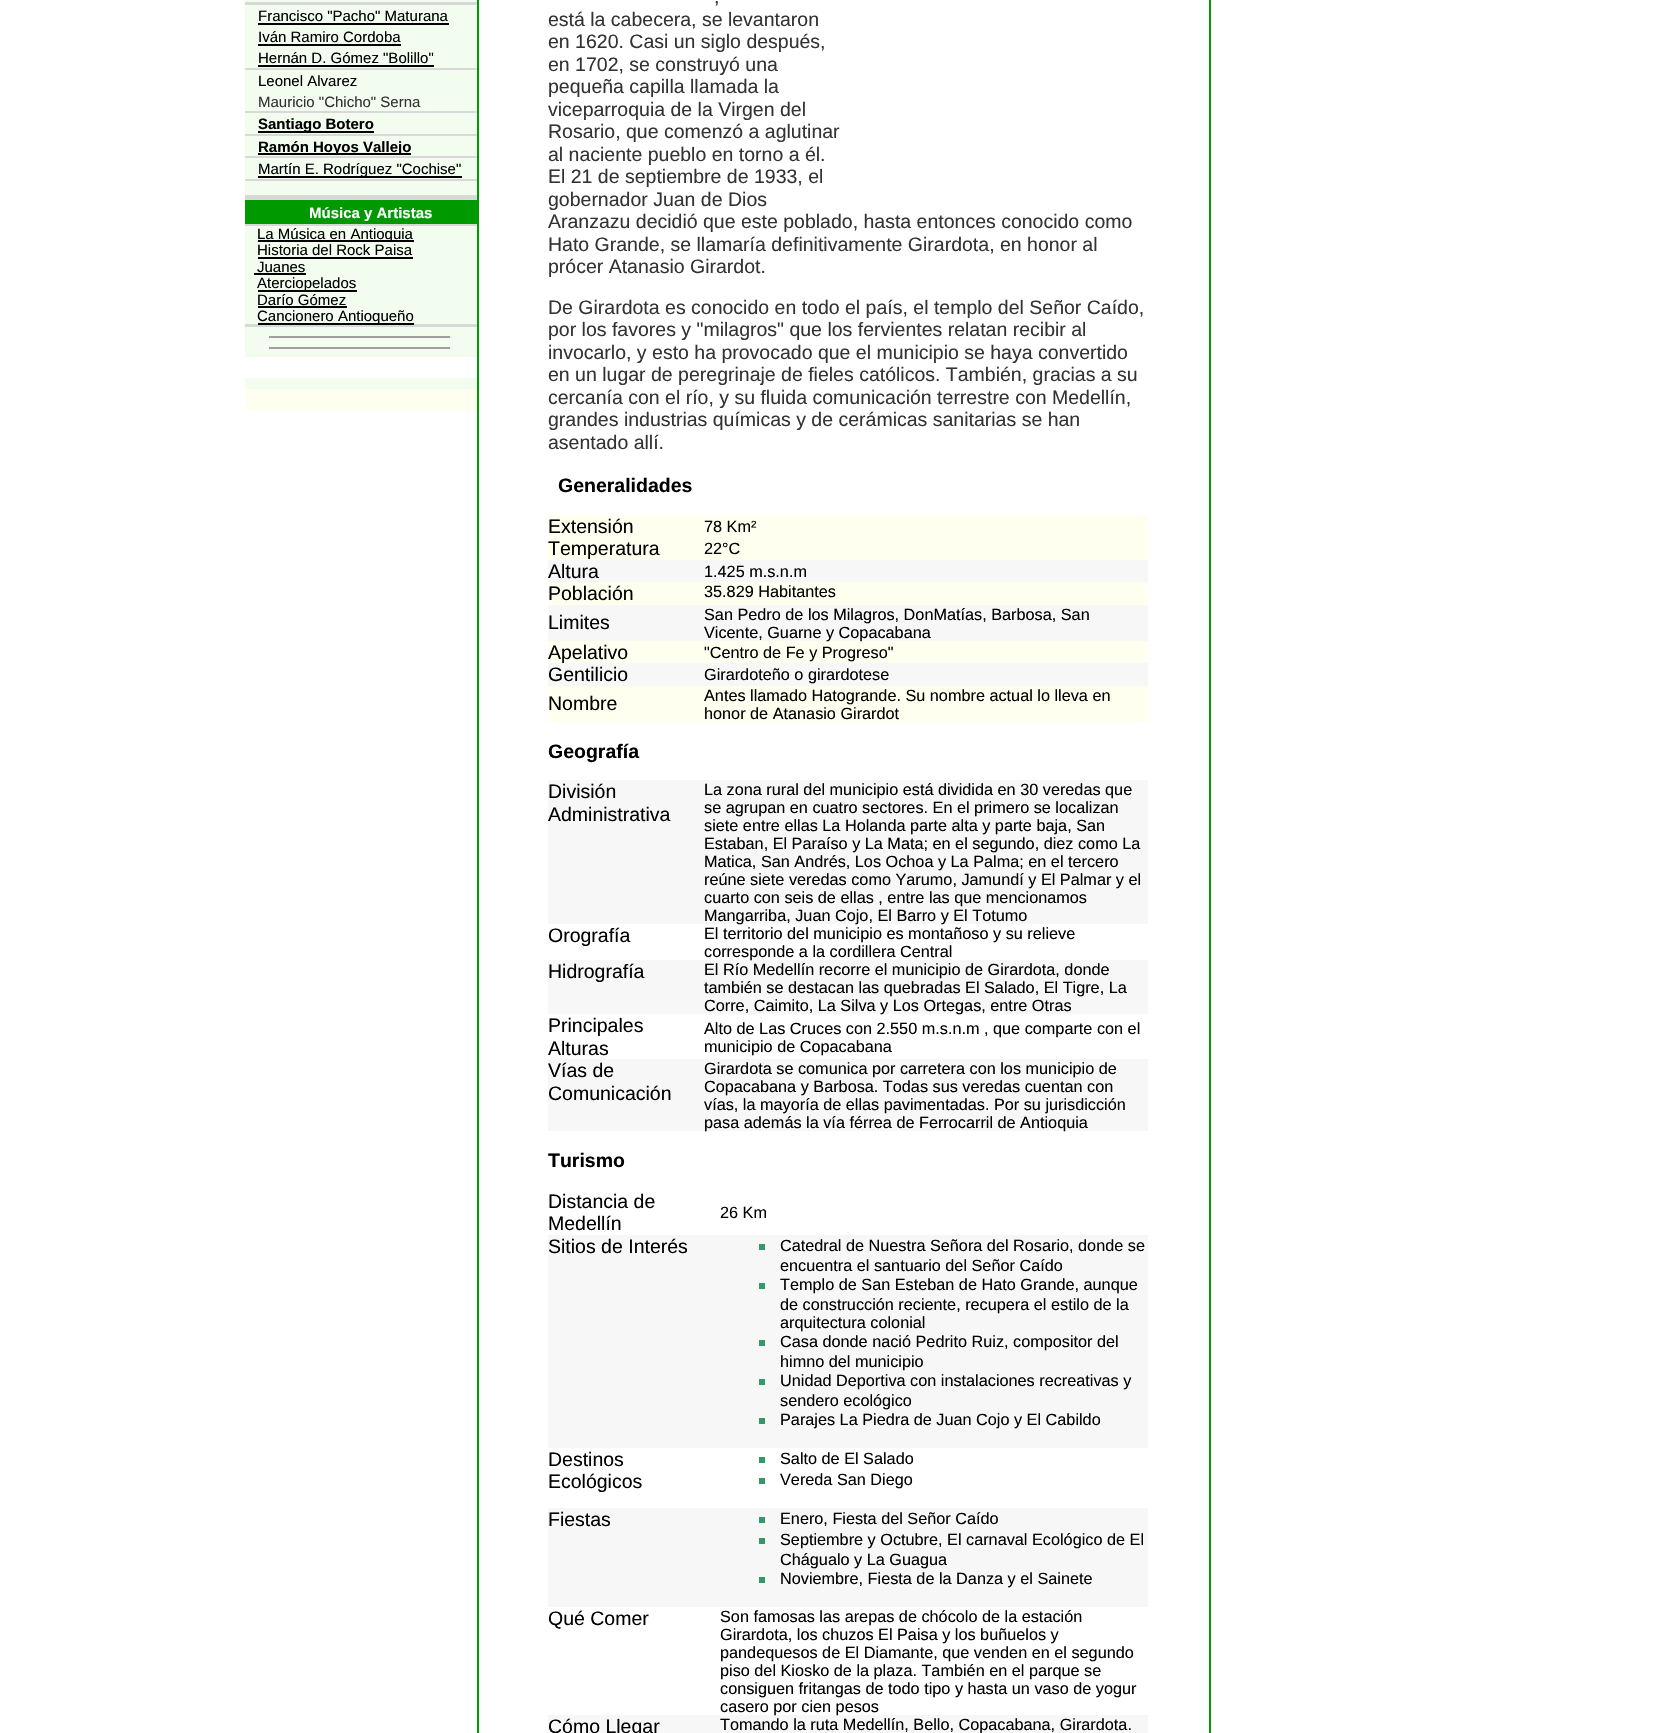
#include "include/core/SkBlurTypes.h"
#include "include/core/SkCanvas.h"
#include "include/core/SkData.h"
#include "include/core/SkFont.h"
#include "include/core/SkFontMgr.h"
#include "include/core/SkImage.h"
#include "include/core/SkMaskFilter.h"
#include "include/core/SkPaint.h"
#include "include/core/SkPathBuilder.h"
#include "include/core/SkTextBlob.h"
#include "include/effects/SkDashPathEffect.h"
#include "include/effects/SkGradientShader.h"
#include "include/utils/SkParsePath.h"

extern sk_sp<SkFontMgr> fontMgr;

void draw(SkCanvas* canvas) {
  SkPaint p;
  p.setAntiAlias(true);
  canvas->clear(SK_ColorWHITE);
  p.setColor(SkColorSetRGB(242, 252, 239));
  canvas->drawRect(SkRect::MakeLTRB(245, 0, 477, 389), p);
  p.setColor(SkColorSetRGB(216, 216, 216));
  canvas->drawRect(SkRect::MakeLTRB(245, 2, 477, 5), p);
  p.setColor(SK_ColorBLACK);
  canvas->drawRect(SkRect::MakeLTRB(258, 23, 449, 25), p);
  canvas->drawRect(SkRect::MakeLTRB(258, 44, 401, 46), p);
  canvas->drawRect(SkRect::MakeLTRB(258, 65, 434, 67), p);
  p.setColor(SkColorSetRGB(216, 216, 216));
  canvas->drawRect(SkRect::MakeLTRB(245, 68, 477, 70), p);
  canvas->drawRect(SkRect::MakeLTRB(245, 111, 477, 113), p);
  p.setColor(SK_ColorBLACK);
  canvas->drawRect(SkRect::MakeLTRB(258, 131, 374, 133), p);
  p.setColor(SkColorSetRGB(216, 216, 216));
  canvas->drawRect(SkRect::MakeLTRB(245, 134, 477, 136), p);
  p.setColor(SK_ColorBLACK);
  canvas->drawRect(SkRect::MakeLTRB(258, 153, 411, 155), p);
  p.setColor(SkColorSetRGB(216, 216, 216));
  canvas->drawRect(SkRect::MakeLTRB(245, 156, 477, 158), p);
  p.setColor(SK_ColorBLACK);
  canvas->drawRect(SkRect::MakeLTRB(258, 176, 462, 178), p);
  p.setColor(SkColorSetRGB(216, 216, 216));
  canvas->drawRect(SkRect::MakeLTRB(245, 179, 477, 181), p);
  canvas->drawRect(SkRect::MakeLTRB(245, 195, 477, 200), p);
  p.setColor(SkColorSetRGB(0, 153, 0));
  canvas->drawRect(SkRect::MakeLTRB(245, 200, 477, 224), p);
  p.setColor(SkColorSetRGB(216, 216, 216));
  canvas->drawRect(SkRect::MakeLTRB(245, 224, 477, 226), p);
  p.setColor(SK_ColorBLACK);
  canvas->drawRect(SkRect::MakeLTRB(258, 240, 414, 242), p);
  canvas->drawRect(SkRect::MakeLTRB(258, 257, 413, 259), p);
  canvas->drawRect(SkRect::MakeLTRB(254, 273, 306, 275), p);
  canvas->drawRect(SkRect::MakeLTRB(258, 290, 357, 292), p);
  canvas->drawRect(SkRect::MakeLTRB(258, 306, 347, 308), p);
  p.setColor(SkColorSetRGB(216, 216, 216));
  canvas->drawRect(SkRect::MakeLTRB(245, 324, 477, 327), p);
  p.setColor(SK_ColorBLACK);
  canvas->drawRect(SkRect::MakeLTRB(258, 323, 414, 325), p);
  p.setColor(SkColorSetRGB(159, 159, 159));
  canvas->drawRect(SkRect::MakeLTRB(269, 336, 452, 338), p);
  p.setColor(SkColorSetRGB(238, 238, 238));
  canvas->drawRect(SkRect::MakeLTRB(450, 336, 452, 338), p);
  p.setColor(SkColorSetRGB(159, 159, 159));
  canvas->drawRect(SkRect::MakeLTRB(269, 347, 452, 349), p);
  p.setColor(SkColorSetRGB(238, 238, 238));
  canvas->drawRect(SkRect::MakeLTRB(450, 347, 452, 349), p);
  p.setColor(SK_ColorWHITE);
  canvas->drawRect(SkRect::MakeLTRB(245, 357, 477, 378), p);
  p.setColor(SkColorSetRGB(255, 255, 240));
  canvas->drawRect(SkRect::MakeLTRB(245, 389, 477, 410), p);
  p.setColor(SkColorSetRGB(0, 153, 0));
  canvas->drawRect(SkRect::MakeLTRB(477, 0, 1211, 1733), p);
  p.setColor(SK_ColorWHITE);
  canvas->drawRect(SkRect::MakeLTRB(479, 0, 1209, 1733), p);
  p.setColor(SkColorSetRGB(255, 255, 240));
  canvas->drawRect(SkRect::MakeLTRB(548, 515, 1148, 722), p);
  p.setColor(SkColorSetRGB(247, 247, 247));
  canvas->drawRect(SkRect::MakeLTRB(548, 560, 1148, 582), p);
  canvas->drawRect(SkRect::MakeLTRB(548, 605, 1148, 641), p);
  canvas->drawRect(SkRect::MakeLTRB(548, 663, 1148, 686), p);
  canvas->drawRect(SkRect::MakeLTRB(548, 780, 1148, 924), p);
  canvas->drawRect(SkRect::MakeLTRB(548, 960, 1148, 1014), p);
  canvas->drawRect(SkRect::MakeLTRB(548, 1059, 1148, 1131), p);
  canvas->drawRect(SkRect::MakeLTRB(548, 1235, 1148, 1448), p);
  p.setColor(SkColorSetRGB(51, 153, 102));
  canvas->drawRect(SkRect::MakeLTRB(759, 1244, 765, 1250), p);
  canvas->drawRect(SkRect::MakeLTRB(759, 1283, 765, 1289), p);
  canvas->drawRect(SkRect::MakeLTRB(759, 1340, 765, 1346), p);
  canvas->drawRect(SkRect::MakeLTRB(759, 1379, 765, 1385), p);
  canvas->drawRect(SkRect::MakeLTRB(759, 1418, 765, 1424), p);
  canvas->drawRect(SkRect::MakeLTRB(759, 1457, 765, 1463), p);
  canvas->drawRect(SkRect::MakeLTRB(759, 1478, 765, 1484), p);
  p.setColor(SkColorSetRGB(247, 247, 247));
  canvas->drawRect(SkRect::MakeLTRB(548, 1508, 1148, 1607), p);
  p.setColor(SkColorSetRGB(51, 153, 102));
  canvas->drawRect(SkRect::MakeLTRB(759, 1517, 765, 1523), p);
  canvas->drawRect(SkRect::MakeLTRB(759, 1538, 765, 1544), p);
  canvas->drawRect(SkRect::MakeLTRB(759, 1577, 765, 1583), p);
  p.setColor(SkColorSetRGB(247, 247, 247));
  canvas->drawRect(SkRect::MakeLTRB(548, 1715, 1148, 1733), p);
  SkFont font1(fontMgr->matchFamilyStyle("Liberation Sans", SkFontStyle::Normal()), 15);
  font1.setSubpixel(true);
  p.setColor(SK_ColorBLACK);
  canvas->drawString("Francisco \"Pacho\" Maturana", 258, 21, font1, p);
  canvas->drawString("Iván Ramiro Cordoba", 258, 42, font1, p);
  canvas->drawString("Hernán D. Gómez \"Bolillo\"", 258, 63, font1, p);
  canvas->drawString("Leonel Alvarez", 258, 86, font1, p);
  p.setColor(SkColorSetRGB(51, 51, 51));
  canvas->drawString("Mauricio \"Chicho\" Serna", 258, 107, font1, p);
  SkFont font2(fontMgr->matchFamilyStyle("Liberation Sans", SkFontStyle::Bold()), 15);
  font2.setSubpixel(true);
  p.setColor(SK_ColorBLACK);
  canvas->drawString("Santiago Botero", 258, 129, font2, p);
  canvas->drawString("Ramón Hoyos Vallejo", 258, 152, font2, p);
  canvas->drawString("Martín E. Rodríguez \"Cochise\"", 258, 174, font1, p);
  p.setColor(SK_ColorWHITE);
  canvas->drawString("Música y Artistas", 309, 218, font2, p);
  p.setColor(SK_ColorBLACK);
  canvas->drawString("La Música en Antioquia", 257, 239, font1, p);
  canvas->drawString("Historia del Rock Paisa", 257, 255, font1, p);
  canvas->drawString("Juanes", 257, 272, font1, p);
  canvas->drawString("Aterciopelados", 257, 288, font1, p);
  canvas->drawString("Darío Gómez", 257, 305, font1, p);
  canvas->drawString("Cancionero Antioqueño", 257, 321, font1, p);
  SkFont font3(fontMgr->matchFamilyStyle("Liberation Sans", SkFontStyle::Normal()), 19.5f);
  font3.setSubpixel(true);
  p.setColor(SkColorSetRGB(51, 51, 51));
  canvas->drawString(",", 714, 3, font3, p);
  canvas->drawString("está la cabecera, se levantaron", 548, 26, font3, p);
  canvas->drawString("en 1620. Casi un siglo después,", 548, 48, font3, p);
  canvas->drawString("en 1702, se construyó una", 548, 71, font3, p);
  canvas->drawString("pequeña capilla llamada la", 548, 93, font3, p);
  canvas->drawString("viceparroquia de la Virgen del", 548, 116, font3, p);
  canvas->drawString("Rosario, que comenzó a aglutinar", 548, 138, font3, p);
  canvas->drawString("al naciente pueblo en torno a él.", 548, 161, font3, p);
  canvas->drawString("El 21 de septiembre de 1933, el", 548, 183, font3, p);
  canvas->drawString("gobernador Juan de Dios", 548, 206, font3, p);
  canvas->drawString("Aranzazu decidió que este poblado, hasta entonces conocido como", 548, 228, font3, p);
  canvas->drawString("Hato Grande, se llamaría definitivamente Girardota, en honor al", 548, 251, font3, p);
  canvas->drawString("prócer Atanasio Girardot.", 548, 273, font3, p);
  canvas->drawString("De Girardota es conocido en todo el país, el templo del Señor Caído,", 548, 314, font3, p);
  canvas->drawString("por los favores y \"milagros\" que los fervientes relatan recibir al", 548, 336, font3, p);
  canvas->drawString("invocarlo, y esto ha provocado que el municipio se haya convertido", 548, 359, font3, p);
  canvas->drawString("en un lugar de peregrinaje de fieles católicos. También, gracias a su", 548, 381, font3, p);
  canvas->drawString("cercanía con el río, y su fluida comunicación terrestre con Medellín,", 548, 404, font3, p);
  canvas->drawString("grandes industrias químicas y de cerámicas sanitarias se han", 548, 426, font3, p);
  canvas->drawString("asentado allí.", 548, 449, font3, p);
  SkFont font4(fontMgr->matchFamilyStyle("Liberation Sans", SkFontStyle::Bold()), 19.5f);
  font4.setSubpixel(true);
  p.setColor(SK_ColorBLACK);
  canvas->drawString("Generalidades", 558, 492, font4, p);
  canvas->drawString("Extensión", 548, 533, font3, p);
  SkFont font5(fontMgr->matchFamilyStyle("Liberation Sans", SkFontStyle::Normal()), 16.25f);
  font5.setSubpixel(true);
  canvas->drawString("78 Km²", 704, 532, font5, p);
  canvas->drawString("Temperatura", 548, 555, font3, p);
  canvas->drawString("22°C", 704, 554, font5, p);
  canvas->drawString("Altura", 548, 578, font3, p);
  canvas->drawString("1.425 m.s.n.m", 704, 577, font5, p);
  canvas->drawString("Población", 548, 600, font3, p);
  canvas->drawString("35.829 Habitantes", 704, 597, font5, p);
  canvas->drawString("Limites", 548, 629, font3, p);
  canvas->drawString("San Pedro de los Milagros, DonMatías, Barbosa, San", 704, 620, font5, p);
  canvas->drawString("Vicente, Guarne y Copacabana", 704, 638, font5, p);
  canvas->drawString("Apelativo", 548, 659, font3, p);
  canvas->drawString("\"Centro de Fe y Progreso\"", 704, 658, font5, p);
  canvas->drawString("Gentilicio", 548, 681, font3, p);
  canvas->drawString("Girardoteño o girardotese", 704, 680, font5, p);
  canvas->drawString("Nombre", 548, 710, font3, p);
  canvas->drawString("Antes llamado Hatogrande. Su nombre actual lo lleva en", 704, 701, font5, p);
  canvas->drawString("honor de Atanasio Girardot", 704, 719, font5, p);
  canvas->drawString("Geografía", 548, 758, font4, p);
  canvas->drawString("División", 548, 798, font3, p);
  canvas->drawString("Administrativa", 548, 821, font3, p);
  canvas->drawString("La zona rural del municipio está dividida en 30 veredas que", 704, 795, font5, p);
  canvas->drawString("se agrupan en cuatro sectores. En el primero se localizan", 704, 813, font5, p);
  canvas->drawString("siete entre ellas La Holanda parte alta y parte baja, San", 704, 831, font5, p);
  canvas->drawString("Estaban, El Paraíso y La Mata; en el segundo, diez como La", 704, 849, font5, p);
  canvas->drawString("Matica, San Andrés, Los Ochoa y La Palma; en el tercero", 704, 867, font5, p);
  canvas->drawString("reúne siete veredas como Yarumo, Jamundí y El Palmar y el", 704, 885, font5, p);
  canvas->drawString("cuarto con seis de ellas , entre las que mencionamos", 704, 903, font5, p);
  canvas->drawString("Mangarriba, Juan Cojo, El Barro y El Totumo", 704, 921, font5, p);
  canvas->drawString("Orografía", 548, 942, font3, p);
  canvas->drawString("El territorio del municipio es montañoso y su relieve", 704, 939, font5, p);
  canvas->drawString("corresponde a la cordillera Central", 704, 957, font5, p);
  canvas->drawString("Hidrografía", 548, 978, font3, p);
  canvas->drawString("El Río Medellín recorre el municipio de Girardota, donde", 704, 975, font5, p);
  canvas->drawString("también se destacan las quebradas El Salado, El Tigre, La", 704, 993, font5, p);
  canvas->drawString("Corre, Caimito, La Silva y Los Ortegas, entre Otras", 704, 1011, font5, p);
  canvas->drawString("Principales", 548, 1032, font3, p);
  canvas->drawString("Alturas", 548, 1055, font3, p);
  canvas->drawString("Alto de Las Cruces con 2.550 m.s.n.m , que comparte con el", 704, 1034, font5, p);
  canvas->drawString("municipio de Copacabana", 704, 1052, font5, p);
  canvas->drawString("Vías de", 548, 1077, font3, p);
  canvas->drawString("Comunicación", 548, 1100, font3, p);
  canvas->drawString("Girardota se comunica por carretera con los municipio de", 704, 1074, font5, p);
  canvas->drawString("Copacabana y Barbosa. Todas sus veredas cuentan con", 704, 1092, font5, p);
  canvas->drawString("vías, la mayoría de ellas pavimentadas. Por su jurisdicción", 704, 1110, font5, p);
  canvas->drawString("pasa además la vía férrea de Ferrocarril de Antioquia", 704, 1128, font5, p);
  canvas->drawString("Turismo", 548, 1167, font4, p);
  canvas->drawString("Distancia de", 548, 1208, font3, p);
  canvas->drawString("Medellín", 548, 1230, font3, p);
  canvas->drawString("26 Km", 720, 1218, font5, p);
  canvas->drawString("Sitios de Interés", 548, 1253, font3, p);
  canvas->drawString("Catedral de Nuestra Señora del Rosario, donde se", 780, 1251, font5, p);
  canvas->drawString("encuentra el santuario del Señor Caído", 780, 1271, font5, p);
  canvas->drawString("Templo de San Esteban de Hato Grande, aunque", 780, 1290, font5, p);
  canvas->drawString("de construcción reciente, recupera el estilo de la", 780, 1310, font5, p);
  canvas->drawString("arquitectura colonial", 780, 1328, font5, p);
  canvas->drawString("Casa donde nació Pedrito Ruiz, compositor del", 780, 1347, font5, p);
  canvas->drawString("himno del municipio", 780, 1367, font5, p);
  canvas->drawString("Unidad Deportiva con instalaciones recreativas y", 780, 1386, font5, p);
  canvas->drawString("sendero ecológico", 780, 1406, font5, p);
  canvas->drawString("Parajes La Piedra de Juan Cojo y El Cabildo", 780, 1425, font5, p);
  canvas->drawString("Destinos", 548, 1466, font3, p);
  canvas->drawString("Ecológicos", 548, 1488, font3, p);
  canvas->drawString("Salto de El Salado", 780, 1464, font5, p);
  canvas->drawString("Vereda San Diego", 780, 1485, font5, p);
  canvas->drawString("Fiestas", 548, 1526, font3, p);
  canvas->drawString("Enero, Fiesta del Señor Caído", 780, 1524, font5, p);
  canvas->drawString("Septiembre y Octubre, El carnaval Ecológico de El", 780, 1545, font5, p);
  canvas->drawString("Chágualo y La Guagua", 780, 1565, font5, p);
  canvas->drawString("Noviembre, Fiesta de la Danza y el Sainete", 780, 1584, font5, p);
  canvas->drawString("Qué Comer", 548, 1625, font3, p);
  canvas->drawString("Son famosas las arepas de chócolo de la estación", 720, 1622, font5, p);
  canvas->drawString("Girardota, los chuzos El Paisa y los buñuelos y", 720, 1640, font5, p);
  canvas->drawString("pandequesos de El Diamante, que venden en el segundo", 720, 1658, font5, p);
  canvas->drawString("piso del Kiosko de la plaza. También en el parque se", 720, 1676, font5, p);
  canvas->drawString("consiguen fritangas de todo tipo y hasta un vaso de yogur", 720, 1694, font5, p);
  canvas->drawString("casero por cien pesos", 720, 1712, font5, p);
  canvas->drawString("Cómo Llegar", 548, 1733, font3, p);
  canvas->drawString("Tomando la ruta Medellín, Bello, Copacabana, Girardota.", 720, 1730, font5, p);
}
